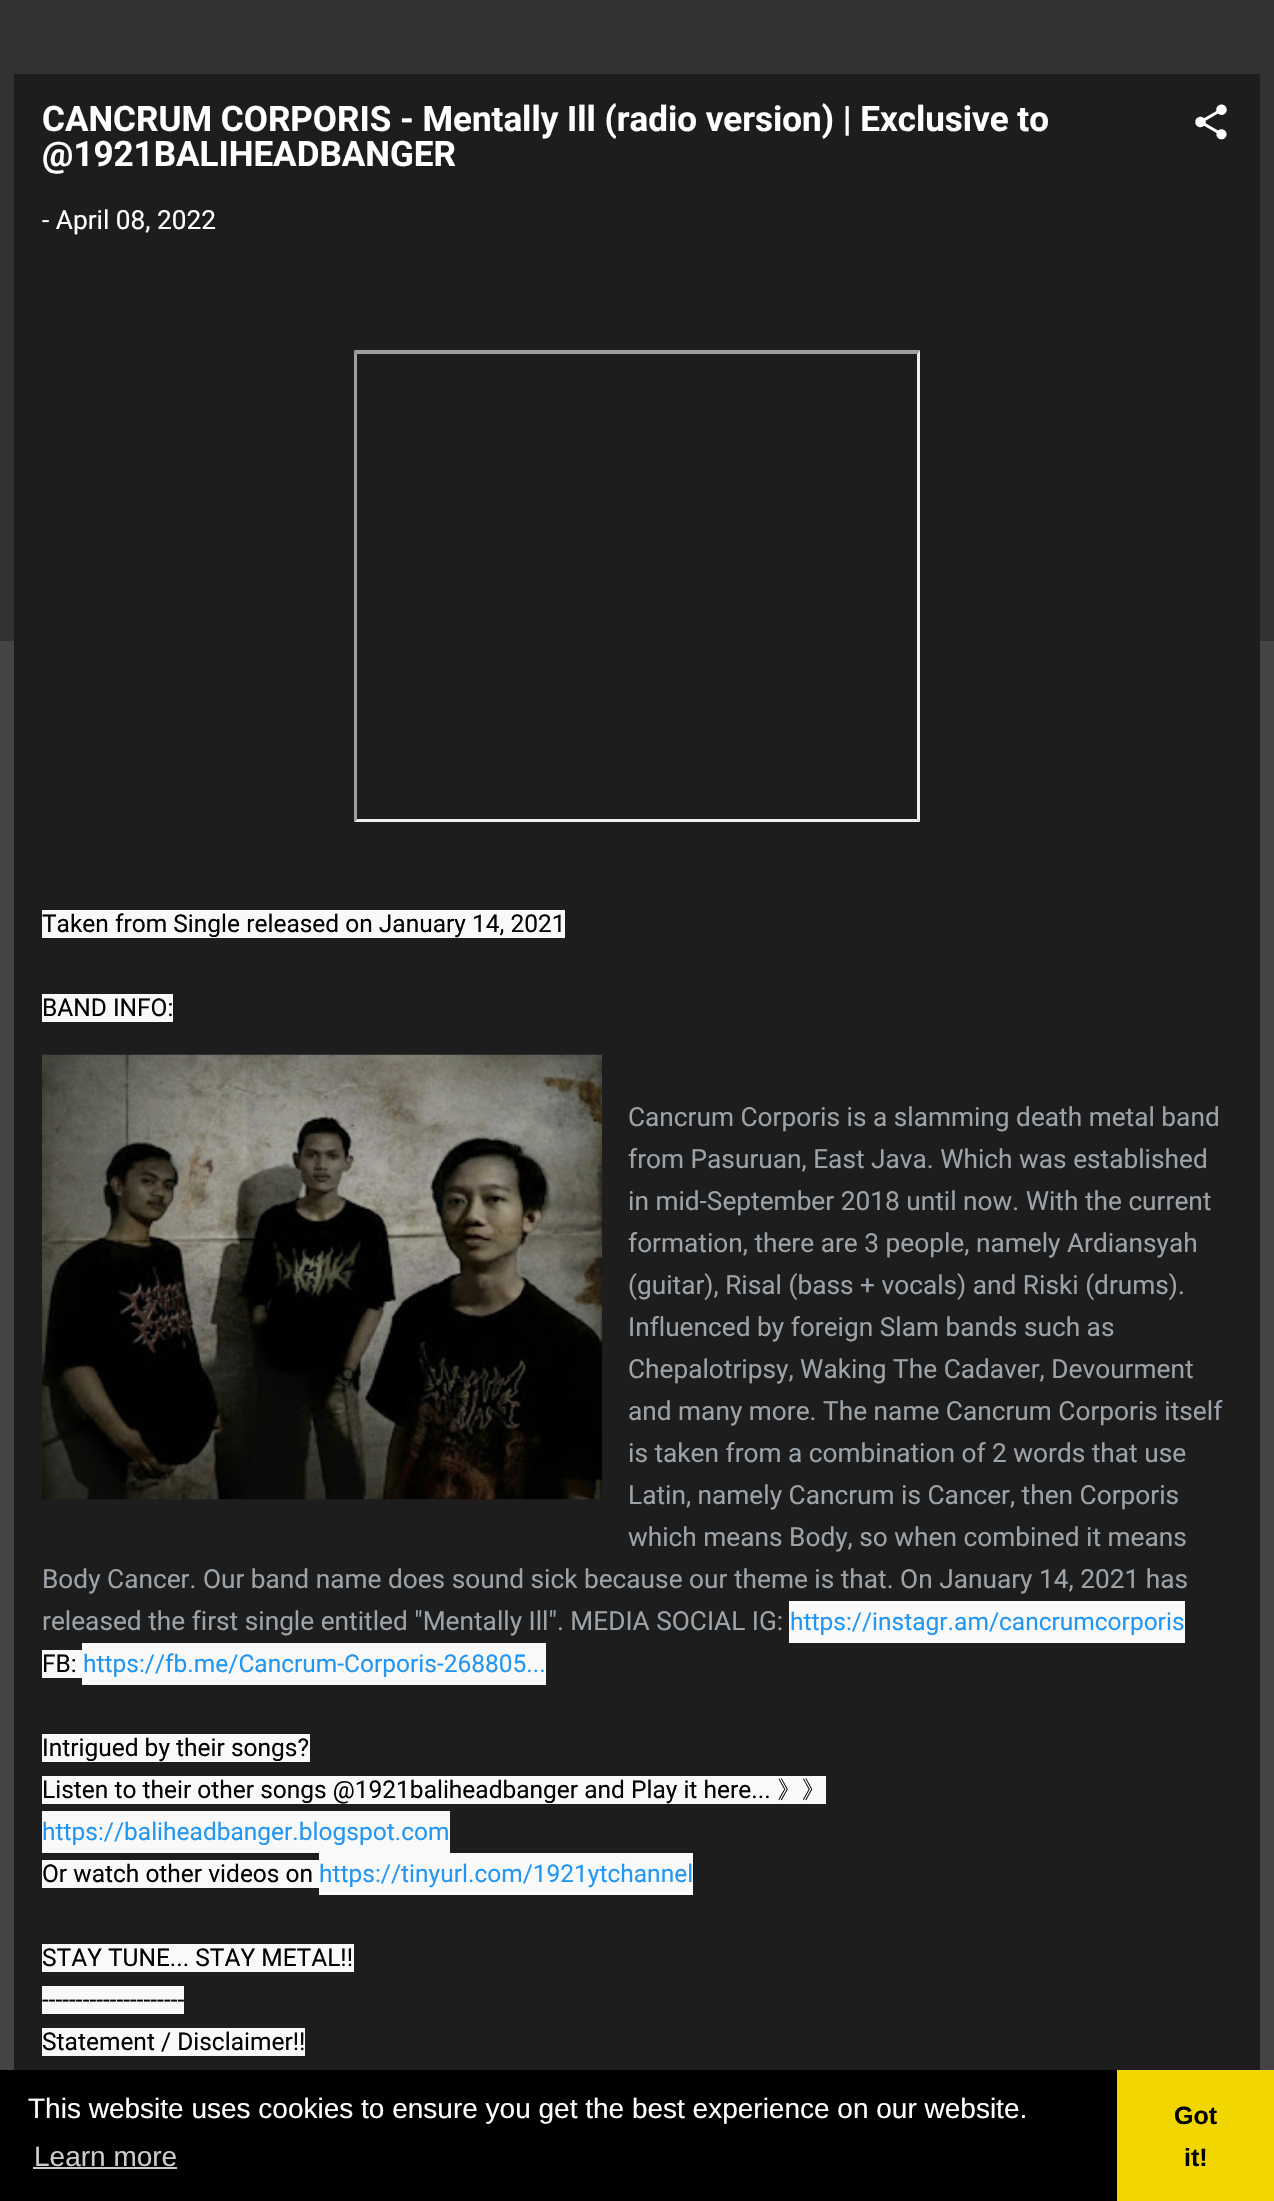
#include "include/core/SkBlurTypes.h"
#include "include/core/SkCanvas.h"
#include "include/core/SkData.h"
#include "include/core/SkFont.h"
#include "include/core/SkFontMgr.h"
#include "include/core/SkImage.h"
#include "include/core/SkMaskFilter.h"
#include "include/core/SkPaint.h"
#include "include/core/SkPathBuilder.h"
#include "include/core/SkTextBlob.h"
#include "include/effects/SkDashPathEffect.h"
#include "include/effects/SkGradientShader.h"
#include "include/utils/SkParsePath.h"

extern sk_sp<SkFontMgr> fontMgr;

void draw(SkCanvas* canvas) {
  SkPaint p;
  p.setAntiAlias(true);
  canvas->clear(SkColorSetRGB(68, 68, 68));
  p.setColor(SkColorSetRGB(50, 50, 50));
  canvas->drawRect(SkRect::MakeLTRB(0, 0, 1274, 641), p);
  p.setColor(SkColorSetRGB(29, 29, 29));
  canvas->drawRect(SkRect::MakeLTRB(14, 74, 1260, 2070), p);
  canvas->drawImageRect(SkImages::DeferredFromEncodedData(SkData::MakeFromFileName("images/1.png")), SkRect::MakeLTRB(1195, 104, 1227, 140), SkSamplingOptions());
  p.setColor(SkColorSetRGB(159, 159, 159));
  canvas->drawPath(SkPathBuilder().moveTo(354, 350).lineTo(920, 350).lineTo(917, 354).lineTo(357, 354).close().detach(), p);
  p.setColor(SkColorSetRGB(238, 238, 238));
  canvas->drawPath(SkPathBuilder().moveTo(920, 350).lineTo(920, 822).lineTo(917, 819).lineTo(917, 354).close().detach(), p);
  canvas->drawPath(SkPathBuilder().moveTo(920, 822).lineTo(354, 822).lineTo(357, 819).lineTo(917, 819).close().detach(), p);
  p.setColor(SkColorSetRGB(159, 159, 159));
  canvas->drawPath(SkPathBuilder().moveTo(354, 822).lineTo(354, 350).lineTo(357, 354).lineTo(357, 819).close().detach(), p);
  p.setColor(SkColorSetRGB(249, 249, 249));
  canvas->drawRect(SkRect::MakeLTRB(42, 910, 565, 938), p);
  canvas->drawRect(SkRect::MakeLTRB(42, 994, 173, 1022), p);
  canvas->drawImageRect(SkImages::DeferredFromEncodedData(SkData::MakeFromFileName("images/2.png")), SkRect::MakeLTRB(42, 1054, 602, 1500), SkSamplingOptions());
  canvas->drawRect(SkRect::MakeLTRB(789, 1601, 1185, 1643), p);
  canvas->drawRect(SkRect::MakeLTRB(42, 1650, 82, 1678), p);
  canvas->drawRect(SkRect::MakeLTRB(82, 1643, 546, 1685), p);
  canvas->drawRect(SkRect::MakeLTRB(42, 1734, 310, 1762), p);
  canvas->drawRect(SkRect::MakeLTRB(42, 1776, 826, 1804), p);
  canvas->drawRect(SkRect::MakeLTRB(42, 1811, 450, 1853), p);
  canvas->drawRect(SkRect::MakeLTRB(42, 1860, 319, 1888), p);
  canvas->drawRect(SkRect::MakeLTRB(319, 1853, 693, 1895), p);
  canvas->drawRect(SkRect::MakeLTRB(42, 1944, 354, 1972), p);
  canvas->drawRect(SkRect::MakeLTRB(42, 1986, 184, 2014), p);
  canvas->drawRect(SkRect::MakeLTRB(42, 2028, 305, 2056), p);
  p.setColor(SK_ColorBLACK);
  canvas->drawRect(SkRect::MakeLTRB(0, 2070, 1117, 2201), p);
  p.setColor(SkColorSetRGB(204, 204, 204));
  canvas->drawRect(SkRect::MakeLTRB(33, 2167, 177, 2169), p);
  p.setColor(SkColorSetRGB(241, 214, 0));
  canvas->drawRect(SkRect::MakeLTRB(1117, 2070, 1274, 2201), p);
  SkFont font1(fontMgr->matchFamilyStyle("Roboto", SkFontStyle::Bold()), 35);
  font1.setSubpixel(true);
  p.setColor(SK_ColorWHITE);
  canvas->drawString("CANCRUM CORPORIS - Mentally Ill (radio version) | Exclusive to", 42, 131, font1, p);
  canvas->drawString("@1921BALIHEADBANGER", 42, 166, font1, p);
  SkFont font2(fontMgr->matchFamilyStyle("Roboto", SkFontStyle::Normal()), 26.25f);
  font2.setSubpixel(true);
  canvas->drawString("- April 08, 2022", 42, 229, font2, p);
  SkFont font3(fontMgr->matchFamilyStyle("Roboto", SkFontStyle::Normal()), 24.5f);
  font3.setSubpixel(true);
  p.setColor(SkColorSetRGB(3, 3, 3));
  canvas->drawString("Taken from Single released on January 14, 2021", 42, 932, font3, p);
  canvas->drawString("BAND INFO:", 42, 1016, font3, p);
  p.setColor(SkColorSetRGB(155, 162, 168));
  canvas->drawString("Cancrum Corporis is a slamming death metal band", 628, 1126, font2, p);
  canvas->drawString("from Pasuruan, East Java. Which was established", 628, 1168, font2, p);
  canvas->drawString("in mid-September 2018 until now. With the current", 628, 1210, font2, p);
  canvas->drawString("formation, there are 3 people, namely Ardiansyah", 628, 1252, font2, p);
  canvas->drawString("(guitar), Risal (bass + vocals) and Riski (drums).", 628, 1294, font2, p);
  canvas->drawString("Influenced by foreign Slam bands such as", 628, 1336, font2, p);
  canvas->drawString("Chepalotripsy, Waking The Cadaver, Devourment", 628, 1378, font2, p);
  canvas->drawString("and many more. The name Cancrum Corporis itself", 628, 1420, font2, p);
  canvas->drawString("is taken from a combination of 2 words that use", 628, 1462, font2, p);
  canvas->drawString("Latin, namely Cancrum is Cancer, then Corporis", 628, 1504, font2, p);
  canvas->drawString("which means Body, so when combined it means", 628, 1546, font2, p);
  canvas->drawString("Body Cancer. Our band name does sound sick because our theme is that. On January 14, 2021 has", 42, 1588, font2, p);
  canvas->drawString("released the first single entitled \"Mentally Ill\". MEDIA SOCIAL IG:", 42, 1630, font2, p);
  p.setColor(SkColorSetRGB(33, 150, 243));
  canvas->drawString("https://instagr.am/cancrumcorporis", 790, 1630, font3, p);
  p.setColor(SkColorSetRGB(3, 3, 3));
  canvas->drawString("FB:", 42, 1672, font3, p);
  p.setColor(SkColorSetRGB(33, 150, 243));
  canvas->drawString("https://fb.me/Cancrum-Corporis-268805...", 83, 1672, font3, p);
  p.setColor(SkColorSetRGB(3, 3, 3));
  canvas->drawString("Intrigued by their songs?", 42, 1756, font3, p);
  canvas->drawString("Listen to their other songs @1921baliheadbanger and Play it here...", 42, 1798, font3, p);
  SkFont font4(fontMgr->matchFamilyStyle("WenQuanYi Zen Hei", SkFontStyle(500, SkFontStyle::kNormal_Width, SkFontStyle::kUpright_Slant)), 24.5f);
  font4.setSubpixel(true);
  canvas->drawString("》》", 777, 1798, font4, p);
  p.setColor(SkColorSetRGB(33, 150, 243));
  canvas->drawString("https://baliheadbanger.blogspot.com", 42, 1840, font3, p);
  p.setColor(SkColorSetRGB(3, 3, 3));
  canvas->drawString("Or watch other videos on", 42, 1882, font3, p);
  p.setColor(SkColorSetRGB(33, 150, 243));
  canvas->drawString("https://tinyurl.com/1921ytchannel", 319, 1882, font3, p);
  p.setColor(SkColorSetRGB(3, 3, 3));
  canvas->drawString("STAY TUNE... STAY METAL!!", 42, 1966, font3, p);
  canvas->drawString("---------------------", 42, 2008, font3, p);
  canvas->drawString("Statement / Disclaimer!!", 42, 2050, font3, p);
  SkFont font5(fontMgr->matchFamilyStyle("Liberation Sans", SkFontStyle::Normal()), 28);
  font5.setSubpixel(true);
  p.setColor(SK_ColorWHITE);
  canvas->drawString("This website uses cookies to ensure you get the best experience on our website.", 28, 2118, font5, p);
  p.setColor(SkColorSetRGB(204, 204, 204));
  canvas->drawString("Learn more", 34, 2166, font5, p);
  SkFont font6(fontMgr->matchFamilyStyle("Liberation Sans", SkFontStyle::Bold()), 25);
  font6.setSubpixel(true);
  p.setColor(SkColorSetRGB(3, 3, 3));
  canvas->drawString("Got", 1174, 2124, font6, p);
  canvas->drawString("it!", 1184, 2166, font6, p);
}
